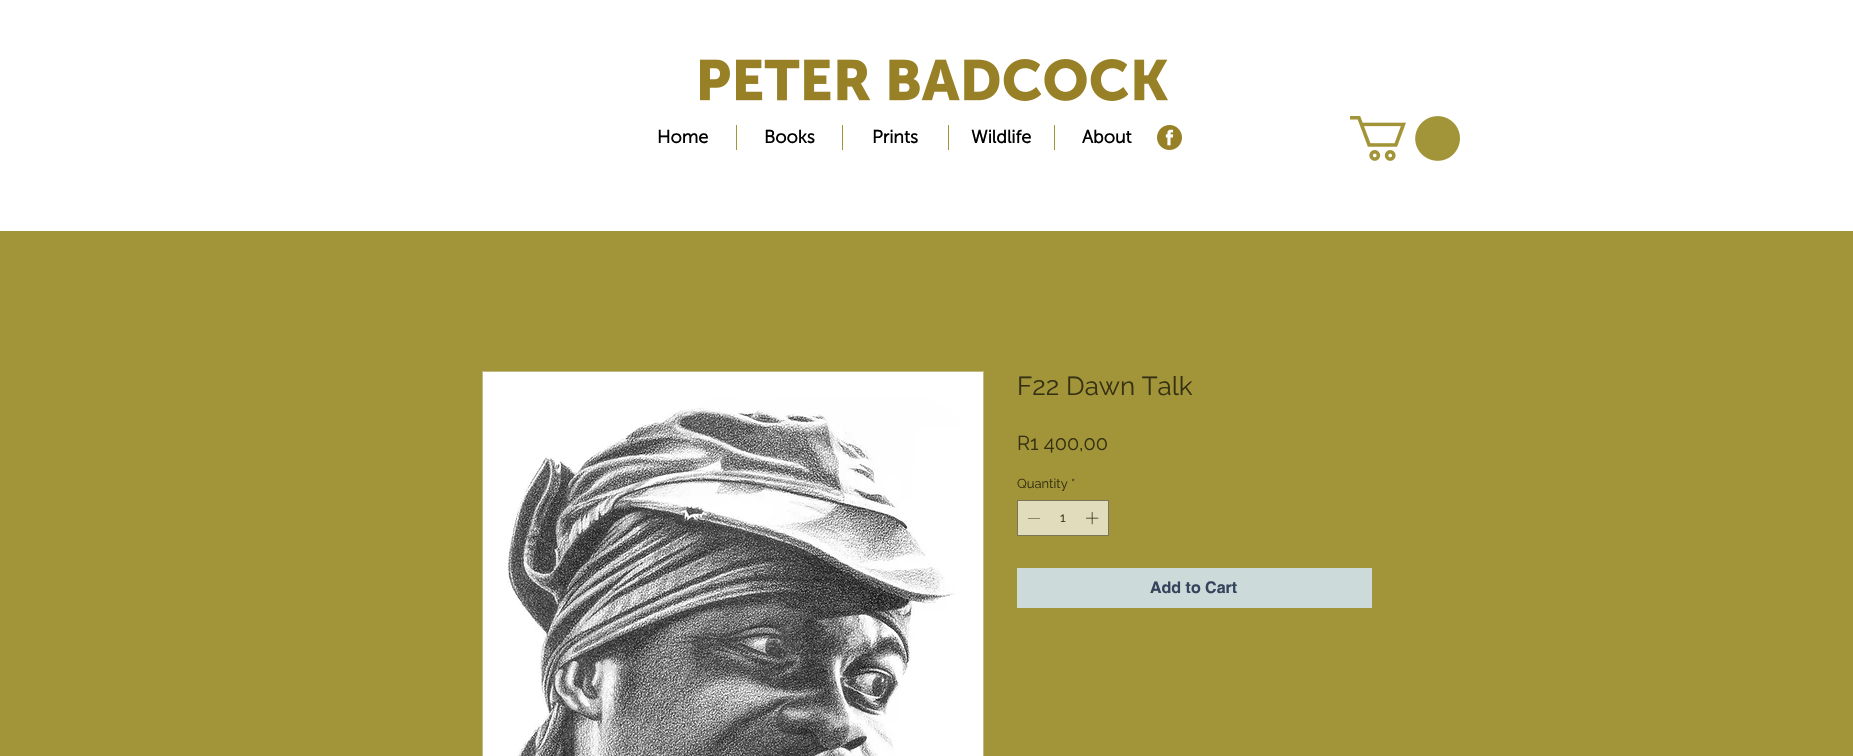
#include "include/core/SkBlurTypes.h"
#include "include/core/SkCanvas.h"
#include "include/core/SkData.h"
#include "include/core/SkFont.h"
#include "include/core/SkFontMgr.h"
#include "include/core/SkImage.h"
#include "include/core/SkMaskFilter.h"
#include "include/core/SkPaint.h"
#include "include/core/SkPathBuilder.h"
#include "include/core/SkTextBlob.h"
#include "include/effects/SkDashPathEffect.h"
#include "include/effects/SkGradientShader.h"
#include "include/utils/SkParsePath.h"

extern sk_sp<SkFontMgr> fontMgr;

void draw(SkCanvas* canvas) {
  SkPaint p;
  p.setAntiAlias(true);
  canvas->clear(SkColorSetRGB(162, 148, 56));
  p.setColor(SK_ColorWHITE);
  canvas->drawRect(SkRect::MakeLTRB(0, 0, 1853, 231), p);
  canvas->drawImageRect(SkImages::DeferredFromEncodedData(SkData::MakeFromFileName("images/1.png")), SkRect::MakeLTRB(700, 59, 1168, 101), SkSamplingOptions());
  p.setColor(SkColorSetRGB(162, 148, 56));
  canvas->drawRect(SkRect::MakeLTRB(736, 125, 737, 150), p);
  canvas->drawRect(SkRect::MakeLTRB(842, 125, 843, 150), p);
  canvas->drawRect(SkRect::MakeLTRB(948, 125, 949, 150), p);
  canvas->drawRect(SkRect::MakeLTRB(1054, 125, 1055, 150), p);
  canvas->drawImageRect(SkImages::DeferredFromEncodedData(SkData::MakeFromFileName("images/2.png")), SkRect::MakeLTRB(1157, 125, 1182, 150), SkSamplingOptions());
  canvas->drawImageRect(SkImages::DeferredFromEncodedData(SkData::MakeFromFileName("images/3.png")), SkRect::MakeLTRB(1350, 116, 1460, 161), SkSamplingOptions());
  p.setStyle(SkPaint::kStroke_Style);
  p.setStrokeWidth(1);
  p.setColor(SkColorSetRGB(193, 185, 130));
  canvas->drawRect(SkRect::MakeLTRB(482.5f, 371.5f, 983.5f, 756.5f), p);
  canvas->drawImageRect(SkImages::DeferredFromEncodedData(SkData::MakeFromFileName("images/4.png")), SkRect::MakeLTRB(483, 372, 983, 756), SkSamplingOptions());
  p.setStyle(SkPaint::kFill_Style);
  p.setColor(SkColorSetRGB(224, 220, 188));
  canvas->drawRect(SkRect::MakeLTRB(1017.5f, 500.5f, 1108.5f, 535.5f), p);
  p.setStyle(SkPaint::kStroke_Style);
  p.setColor(SkColorSetRGB(122, 117, 87));
  canvas->drawRect(SkRect::MakeLTRB(1017.5f, 500.5f, 1108.5f, 535.5f), p);
  p.setStyle(SkPaint::kFill_Style);
  p.setColor(SkColorSetRGB(54, 49, 19));
  canvas->drawPath(SkPathBuilder(SkPathFillType::kEvenOdd).moveTo(1040, 518).lineTo(1040, 518.5f).lineTo(1028, 518.5f).lineTo(1028, 518).close().detach(), p);
  canvas->drawImageRect(SkImages::DeferredFromEncodedData(SkData::MakeFromFileName("images/5.png")), SkRect::MakeLTRB(1086, 512, 1099, 525), SkSamplingOptions());
  p.setColor(SkColorSetRGB(204, 219, 217));
  canvas->drawRect(SkRect::MakeLTRB(1017, 568, 1372, 608), p);
  SkFont font1(fontMgr->matchFamilyStyle("Museo Sans", SkFontStyle::Bold()), 18);
  font1.setSubpixel(true);
  p.setColor(SK_ColorBLACK);
  canvas->drawString("Home", 657, 143, font1, p);
  canvas->drawString("Books", 764, 143, font1, p);
  canvas->drawString("Prints", 872, 143, font1, p);
  canvas->drawString("Wildlife", 971, 143, font1, p);
  canvas->drawString("About", 1082, 143, font1, p);
  SkFont font2(fontMgr->matchFamilyStyle("Raleway", SkFontStyle::Normal()), 26);
  font2.setSubpixel(true);
  p.setColor(SkColorSetRGB(54, 49, 19));
  canvas->drawString("F22 Dawn Talk", 1017, 395, font2, p);
  SkFont font3(fontMgr->matchFamilyStyle("Raleway", SkFontStyle::Normal()), 20);
  font3.setSubpixel(true);
  canvas->drawString("R1 400,00", 1017, 450, font3, p);
  SkFont font4(fontMgr->matchFamilyStyle("Raleway", SkFontStyle::Normal()), 13);
  font4.setSubpixel(true);
  canvas->drawString("Quantity", 1017, 488, font4, p);
  canvas->drawString("*", 1071, 488, font4, p);
  canvas->drawString("1", 1060, 522, font4, p);
  SkFont font5(fontMgr->matchFamilyStyle("helvetica", SkFontStyle::Bold()), 16);
  font5.setSubpixel(true);
  p.setColor(SkColorSetRGB(53, 67, 93));
  canvas->drawString("Add to Cart", 1150, 593, font5, p);
}
